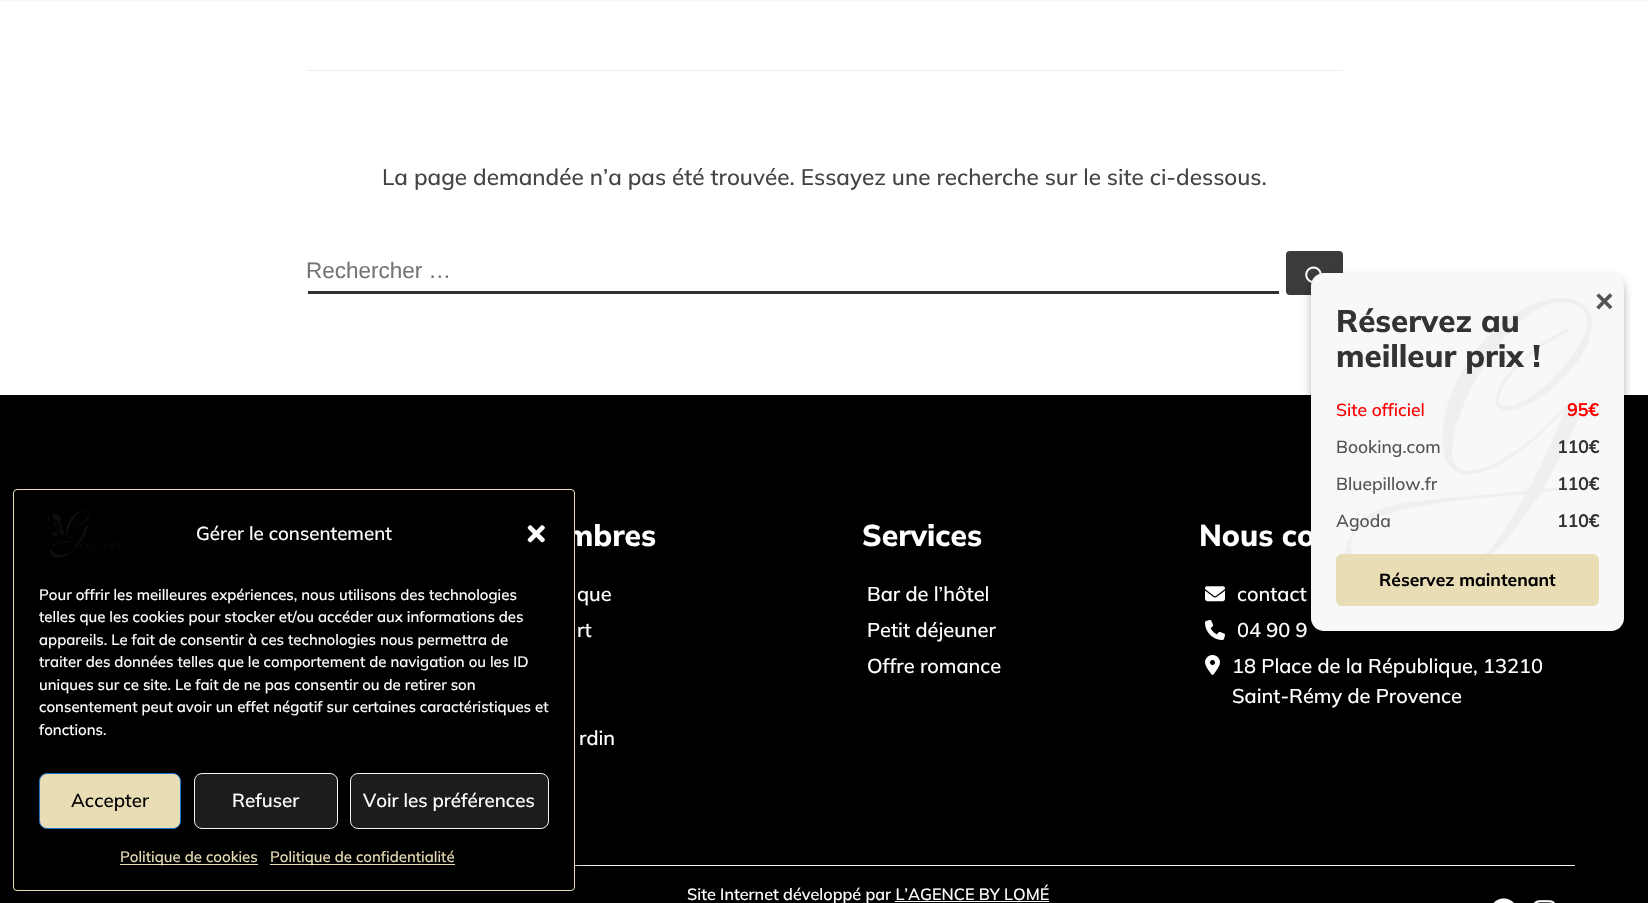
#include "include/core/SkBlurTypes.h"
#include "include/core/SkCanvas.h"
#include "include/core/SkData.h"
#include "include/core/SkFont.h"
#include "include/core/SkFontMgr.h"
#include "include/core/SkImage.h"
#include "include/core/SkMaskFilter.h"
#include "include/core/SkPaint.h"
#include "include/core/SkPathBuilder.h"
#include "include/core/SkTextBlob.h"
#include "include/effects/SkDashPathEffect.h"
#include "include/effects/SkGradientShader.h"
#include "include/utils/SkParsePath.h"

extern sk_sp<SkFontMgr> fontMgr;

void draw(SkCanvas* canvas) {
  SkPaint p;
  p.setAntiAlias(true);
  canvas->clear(SK_ColorWHITE);
  p.setColor(SkColorSetRGB(247, 247, 247));
  canvas->drawRect(SkRect::MakeLTRB(0, 0, 1648, 1), p);
  p.setColor(SkColorSetRGB(236, 238, 239));
  canvas->drawRect(SkRect::MakeLTRB(306, 70, 1343, 71), p);
  p.setColor(SkColorSetRGB(49, 49, 49));
  canvas->drawRect(SkRect::MakeLTRB(308, 291, 1279, 294), p);
  p.setColor(SkColorSetRGB(59, 59, 59));
  canvas->drawRoundRect(SkRect::MakeLTRB(1287.5f, 252.5f, 1341.5f, 293.5f), 2.5f, 2.5f, p);
  p.setStyle(SkPaint::kStroke_Style);
  p.setStrokeWidth(3);
  canvas->drawRoundRect(SkRect::MakeLTRB(1287.5f, 252.5f, 1341.5f, 293.5f), 2.5f, 2.5f, p);
  canvas->drawImageRect(SkImages::DeferredFromEncodedData(SkData::MakeFromFileName("images/1.png")), SkRect::MakeLTRB(1305, 266, 1322, 283), SkSamplingOptions());
  p.setStyle(SkPaint::kFill_Style);
  p.setColor(SK_ColorBLACK);
  canvas->drawRect(SkRect::MakeLTRB(0, 395, 1648, 903), p);
  canvas->drawImageRect(SkImages::DeferredFromEncodedData(SkData::MakeFromFileName("images/2.png")), SkRect::MakeLTRB(1205, 586, 1225, 602), SkSamplingOptions());
  canvas->drawImageRect(SkImages::DeferredFromEncodedData(SkData::MakeFromFileName("images/3.png")), SkRect::MakeLTRB(1205, 620, 1225, 640), SkSamplingOptions());
  canvas->drawImageRect(SkImages::DeferredFromEncodedData(SkData::MakeFromFileName("images/4.png")), SkRect::MakeLTRB(1205, 655, 1220, 675), SkSamplingOptions());
  p.setColor(SkColorSetRGB(244, 244, 244));
  canvas->drawRect(SkRect::MakeLTRB(575, 865, 1575, 866), p);
  p.setColor(SK_ColorWHITE);
  canvas->drawRect(SkRect::MakeLTRB(895, 901, 1049, 902), p);
  canvas->drawImageRect(SkImages::DeferredFromEncodedData(SkData::MakeFromFileName("images/5.png")), SkRect::MakeLTRB(1493, 898, 1514, 903), SkSamplingOptions());
  canvas->drawImageRect(SkImages::DeferredFromEncodedData(SkData::MakeFromFileName("images/6.png")), SkRect::MakeLTRB(1534, 900, 1555, 903), SkSamplingOptions());
  p.setColor(SkColorSetARGB(77, 0, 0, 0));
  p.setMaskFilter(SkMaskFilter::MakeBlur(kNormal_SkBlurStyle, 4));
  canvas->drawRoundRect(SkRect::MakeLTRB(1311, 278, 1624, 636), 13, 13, p);
  p.setMaskFilter(nullptr);
  p.setColor(SkColorSetARGB(59, 0, 0, 0));
  p.setMaskFilter(SkMaskFilter::MakeBlur(kNormal_SkBlurStyle, 4));
  canvas->drawRoundRect(SkRect::MakeLTRB(13, 496, 575, 899), 4, 4, p);
  p.setMaskFilter(nullptr);
  p.setColor(SkColorSetARGB(48, 0, 0, 0));
  p.setMaskFilter(SkMaskFilter::MakeBlur(kNormal_SkBlurStyle, 12.5f));
  canvas->drawRoundRect(SkRect::MakeLTRB(13, 501, 575, 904), 4, 4, p);
  p.setMaskFilter(nullptr);
  SkFont font1(fontMgr->matchFamilyStyle("Mulish", SkFontStyle(500, SkFontStyle::kNormal_Width, SkFontStyle::kUpright_Slant)), 22.5f);
  font1.setSubpixel(true);
  p.setColor(SkColorSetRGB(68, 68, 68));
  canvas->drawString("La page demandée n’a pas été trouvée. Essayez une recherche sur le site ci-dessous.", 382, 185, font1, p);
  SkFont font2(fontMgr->matchFamilyStyle("Liberation Sans", SkFontStyle::Normal()), 22.5f);
  font2.setSubpixel(true);
  p.setColor(SkColorSetRGB(117, 117, 117));
  canvas->drawString("Rechercher …", 306, 278, font2, p);
  SkFont font3(fontMgr->matchFamilyStyle("Mulish", SkFontStyle(800, SkFontStyle::kNormal_Width, SkFontStyle::kUpright_Slant)), 30);
  font3.setSubpixel(true);
  p.setColor(SK_ColorWHITE);
  canvas->drawString("mbres", 566, 546, font3, p);
  SkFont font4(fontMgr->matchFamilyStyle("Mulish", SkFontStyle(500, SkFontStyle::kNormal_Width, SkFontStyle::kUpright_Slant)), 20);
  font4.setSubpixel(true);
  canvas->drawString("que", 577, 601, font4, p);
  canvas->drawString("rt", 577, 637, font4, p);
  canvas->drawString("rdin", 579, 745, font4, p);
  canvas->drawString("Services", 862, 546, font3, p);
  canvas->drawString("Bar de l’hôtel", 867, 601, font4, p);
  canvas->drawString("Petit déjeuner", 867, 637, font4, p);
  canvas->drawString("Offre romance", 867, 673, font4, p);
  canvas->drawString("Nous co", 1199, 546, font3, p);
  canvas->drawString("contact", 1237, 601, font4, p);
  canvas->drawString("04 90 9", 1237, 637, font4, p);
  canvas->drawString("18 Place de la République, 13210", 1232, 673, font4, p);
  canvas->drawString("Saint-Rémy de Provence", 1232, 703, font4, p);
  SkFont font5(fontMgr->matchFamilyStyle("Mulish", SkFontStyle(500, SkFontStyle::kNormal_Width, SkFontStyle::kUpright_Slant)), 16.25f);
  font5.setSubpixel(true);
  canvas->drawString("Site Internet développé par L’AGENCE BY LOMÉ", 687, 900, font5, p);
  p.setColor(SkColorSetRGB(248, 248, 248));
  canvas->drawRoundRect(SkRect::MakeLTRB(1311, 273, 1624, 631), 13, 13, p);
  canvas->drawImageRect(SkImages::DeferredFromEncodedData(SkData::MakeFromFileName("images/7.png")), SkRect::MakeLTRB(1345, 298, 1592, 554), SkSamplingOptions());
  SkFont font6(fontMgr->matchFamilyStyle("Liberation Sans", SkFontStyle::Bold()), 32);
  font6.setSubpixel(true);
  p.setColor(SkColorSetRGB(85, 85, 85));
  canvas->drawString("×", 1595, 312, font6, p);
  SkFont font7(fontMgr->matchFamilyStyle("Mulish", SkFontStyle(800, SkFontStyle::kNormal_Width, SkFontStyle::kUpright_Slant)), 31.25f);
  font7.setSubpixel(true);
  p.setColor(SkColorSetRGB(51, 51, 51));
  canvas->drawString("Réservez au", 1336, 332, font7, p);
  canvas->drawString("meilleur prix !", 1336, 367, font7, p);
  SkFont font8(fontMgr->matchFamilyStyle("Mulish", SkFontStyle(500, SkFontStyle::kNormal_Width, SkFontStyle::kUpright_Slant)), 17.5f);
  font8.setSubpixel(true);
  p.setColor(SkColorSetRGB(255, 0, 0));
  canvas->drawString("Site officiel", 1336, 416, font8, p);
  SkFont font9(fontMgr->matchFamilyStyle("Mulish", SkFontStyle::Bold()), 17.5f);
  font9.setSubpixel(true);
  canvas->drawString("95€", 1567, 416, font9, p);
  p.setColor(SkColorSetRGB(85, 85, 85));
  canvas->drawString("Booking.com", 1336, 453, font8, p);
  p.setColor(SkColorSetRGB(51, 51, 51));
  canvas->drawString("110€", 1557, 453, font9, p);
  p.setColor(SkColorSetRGB(85, 85, 85));
  canvas->drawString("Bluepillow.fr", 1336, 490, font8, p);
  p.setColor(SkColorSetRGB(51, 51, 51));
  canvas->drawString("110€", 1557, 490, font9, p);
  p.setColor(SkColorSetRGB(85, 85, 85));
  canvas->drawString("Agoda", 1336, 527, font8, p);
  p.setColor(SkColorSetRGB(51, 51, 51));
  canvas->drawString("110€", 1557, 527, font9, p);
  p.setColor(SkColorSetRGB(233, 221, 182));
  canvas->drawRoundRect(SkRect::MakeLTRB(1336, 554, 1599, 606), 6, 6, p);
  SkFont font10(fontMgr->matchFamilyStyle("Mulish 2", SkFontStyle::Bold()), 17.5f);
  font10.setSubpixel(true);
  p.setColor(SK_ColorBLACK);
  canvas->drawString("Réservez maintenant", 1379, 586, font10, p);
  canvas->drawRoundRect(SkRect::MakeLTRB(13.5f, 489.5f, 574.5f, 890.5f), 3.5f, 3.5f, p);
  p.setStyle(SkPaint::kStroke_Style);
  p.setStrokeWidth(1);
  p.setColor(SkColorSetRGB(233, 221, 182));
  canvas->drawRoundRect(SkRect::MakeLTRB(13.5f, 489.5f, 574.5f, 890.5f), 3.5f, 3.5f, p);
  canvas->drawImageRect(SkImages::DeferredFromEncodedData(SkData::MakeFromFileName("images/8.png")), SkRect::MakeLTRB(45, 510, 119, 558), SkSamplingOptions());
  SkFont font11(fontMgr->matchFamilyStyle("Mulish", SkFontStyle(500, SkFontStyle::kNormal_Width, SkFontStyle::kUpright_Slant)), 18.75f);
  font11.setSubpixel(true);
  p.setStyle(SkPaint::kFill_Style);
  p.setColor(SK_ColorWHITE);
  canvas->drawString("Gérer le consentement", 196, 540, font11, p);
  canvas->drawImageRect(SkImages::DeferredFromEncodedData(SkData::MakeFromFileName("images/9.png")), SkRect::MakeLTRB(527, 525, 545, 543), SkSamplingOptions());
  SkFont font12(fontMgr->matchFamilyStyle("Mulish", SkFontStyle(500, SkFontStyle::kNormal_Width, SkFontStyle::kUpright_Slant)), 15);
  font12.setSubpixel(true);
  canvas->drawString("Pour offrir les meilleures expériences, nous utilisons des technologies", 39, 600, font12, p);
  canvas->drawString("telles que les cookies pour stocker et/ou accéder aux informations des", 39, 622, font12, p);
  canvas->drawString("appareils. Le fait de consentir à ces technologies nous permettra de", 39, 645, font12, p);
  canvas->drawString("traiter des données telles que le comportement de navigation ou les ID", 39, 667, font12, p);
  canvas->drawString("uniques sur ce site. Le fait de ne pas consentir ou de retirer son", 39, 690, font12, p);
  canvas->drawString("consentement peut avoir un effet négatif sur certaines caractéristiques et", 39, 712, font12, p);
  canvas->drawString("fonctions.", 39, 735, font12, p);
  p.setColor(SkColorSetRGB(233, 221, 182));
  canvas->drawRoundRect(SkRect::MakeLTRB(39.5f, 773.5f, 180.5f, 828.5f), 7.5f, 7.5f, p);
  p.setStyle(SkPaint::kStroke_Style);
  p.setColor(SkColorSetRGB(30, 115, 190));
  canvas->drawRoundRect(SkRect::MakeLTRB(39.5f, 773.5f, 180.5f, 828.5f), 7.5f, 7.5f, p);
  p.setStyle(SkPaint::kFill_Style);
  p.setColor(SK_ColorBLACK);
  canvas->drawString("Accepter", 71, 807, font11, p);
  p.setColor(SkColorSetRGB(28, 28, 28));
  canvas->drawRoundRect(SkRect::MakeLTRB(194.5f, 773.5f, 337.5f, 828.5f), 7.5f, 7.5f, p);
  p.setStyle(SkPaint::kStroke_Style);
  p.setColor(SkColorSetRGB(242, 242, 242));
  canvas->drawRoundRect(SkRect::MakeLTRB(194.5f, 773.5f, 337.5f, 828.5f), 7.5f, 7.5f, p);
  p.setStyle(SkPaint::kFill_Style);
  p.setColor(SK_ColorWHITE);
  canvas->drawString("Refuser", 232, 807, font11, p);
  p.setColor(SkColorSetRGB(28, 28, 28));
  canvas->drawRoundRect(SkRect::MakeLTRB(350.5f, 773.5f, 548.5f, 828.5f), 7.5f, 7.5f, p);
  p.setStyle(SkPaint::kStroke_Style);
  p.setColor(SkColorSetRGB(242, 242, 242));
  canvas->drawRoundRect(SkRect::MakeLTRB(350.5f, 773.5f, 548.5f, 828.5f), 7.5f, 7.5f, p);
  p.setStyle(SkPaint::kFill_Style);
  p.setColor(SK_ColorWHITE);
  canvas->drawString("Voir les préférences", 363, 807, font11, p);
  p.setColor(SkColorSetRGB(233, 221, 182));
  canvas->drawRect(SkRect::MakeLTRB(120, 864, 258, 865), p);
  canvas->drawString("Politique de cookies", 120, 862, font12, p);
  canvas->drawRect(SkRect::MakeLTRB(270, 864, 455, 865), p);
  canvas->drawString("Politique de confidentialité", 270, 862, font12, p);
}
